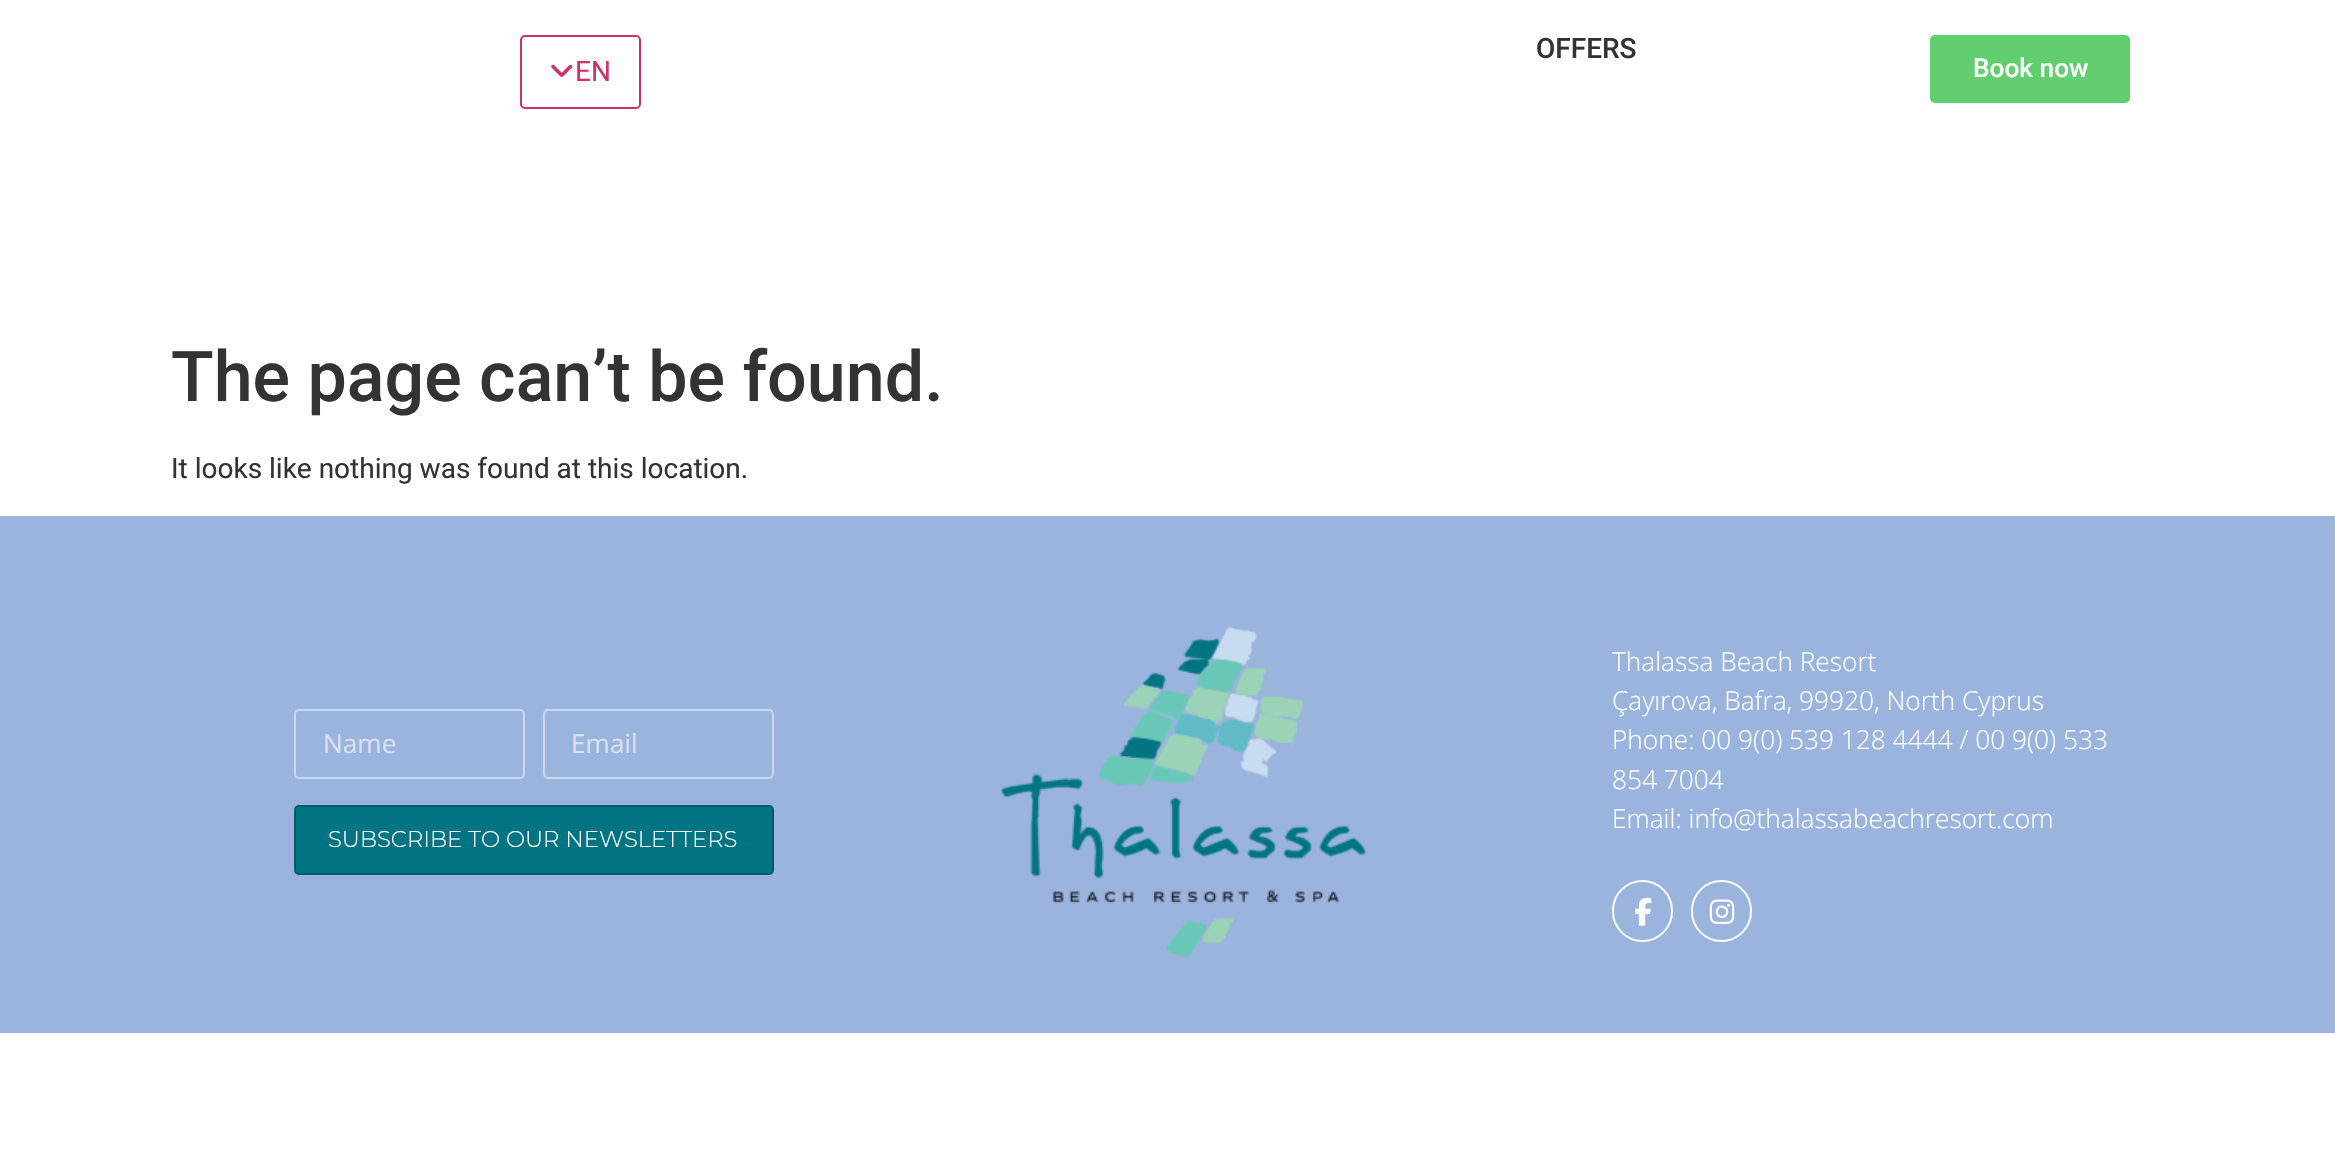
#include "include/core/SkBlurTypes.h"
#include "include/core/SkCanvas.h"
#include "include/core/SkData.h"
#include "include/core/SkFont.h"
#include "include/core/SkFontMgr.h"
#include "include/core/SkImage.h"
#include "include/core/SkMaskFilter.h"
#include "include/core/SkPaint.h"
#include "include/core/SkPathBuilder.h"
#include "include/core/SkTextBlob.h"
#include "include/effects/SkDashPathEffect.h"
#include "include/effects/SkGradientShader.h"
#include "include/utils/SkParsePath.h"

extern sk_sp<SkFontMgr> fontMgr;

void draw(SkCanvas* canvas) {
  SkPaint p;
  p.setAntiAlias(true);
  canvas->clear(SK_ColorWHITE);
  p.setStyle(SkPaint::kStroke_Style);
  p.setStrokeWidth(2);
  p.setColor(SkColorSetRGB(204, 51, 102));
  canvas->drawRoundRect(SkRect::MakeLTRB(521, 36, 640, 108), 4, 4, p);
  canvas->drawImageRect(SkImages::DeferredFromEncodedData(SkData::MakeFromFileName("images/1.png")), SkRect::MakeLTRB(551, 64, 573, 77), SkSamplingOptions());
  p.setStyle(SkPaint::kFill_Style);
  p.setColor(SkColorSetRGB(97, 206, 112));
  canvas->drawRoundRect(SkRect::MakeLTRB(1930, 35, 2130, 103), 5, 5, p);
  p.setColor(SkColorSetRGB(155, 180, 221));
  canvas->drawRect(SkRect::MakeLTRB(0, 516, 2335, 1033), p);
  p.setStyle(SkPaint::kStroke_Style);
  p.setColor(SkColorSetRGB(203, 216, 237));
  canvas->drawRoundRect(SkRect::MakeLTRB(295, 710, 524, 778), 4, 4, p);
  canvas->drawRoundRect(SkRect::MakeLTRB(544, 710, 773, 778), 4, 4, p);
  p.setStyle(SkPaint::kFill_Style);
  p.setColor(SkColorSetRGB(0, 116, 130));
  canvas->drawRoundRect(SkRect::MakeLTRB(294, 805, 774, 875), 5, 5, p);
  p.setStyle(SkPaint::kStroke_Style);
  p.setColor(SkColorSetARGB(54, 0, 0, 0));
  canvas->drawRoundRect(SkRect::MakeLTRB(295, 806, 773, 874), 4, 4, p);
  canvas->drawImageRect(SkImages::DeferredFromEncodedData(SkData::MakeFromFileName("images/2.png")), SkRect::MakeLTRB(1000, 626, 1366, 958), SkSamplingOptions());
  p.setColor(SK_ColorWHITE);
  canvas->drawRoundRect(SkRect::MakeLTRB(1613, 881, 1672, 941), 29.5f, 29.5f, p);
  canvas->drawImageRect(SkImages::DeferredFromEncodedData(SkData::MakeFromFileName("images/3.png")), SkRect::MakeLTRB(1635, 897, 1652, 926), SkSamplingOptions());
  canvas->drawRoundRect(SkRect::MakeLTRB(1692, 881, 1751, 941), 29.5f, 29.5f, p);
  canvas->drawImageRect(SkImages::DeferredFromEncodedData(SkData::MakeFromFileName("images/4.png")), SkRect::MakeLTRB(1709, 899, 1735, 924), SkSamplingOptions());
  SkFont font1(fontMgr->matchFamilyStyle("Roboto", SkFontStyle::Normal()), 28);
  font1.setSubpixel(true);
  p.setStyle(SkPaint::kFill_Style);
  p.setColor(SkColorSetRGB(204, 51, 102));
  canvas->drawString("EN", 575, 81, font1, p);
  SkFont font2(fontMgr->matchFamilyStyle("Roboto", SkFontStyle(500, SkFontStyle::kNormal_Width, SkFontStyle::kUpright_Slant)), 28);
  font2.setSubpixel(true);
  p.setColor(SkColorSetRGB(51, 51, 51));
  canvas->drawString("OFFERS", 1536, 58, font2, p);
  SkFont font3(fontMgr->matchFamilyStyle("Roboto", SkFontStyle(500, SkFontStyle::kNormal_Width, SkFontStyle::kUpright_Slant)), 26.25f);
  font3.setSubpixel(true);
  p.setColor(SK_ColorWHITE);
  canvas->drawString("Book now", 1973, 77, font3, p);
  SkFont font4(fontMgr->matchFamilyStyle("Roboto", SkFontStyle(500, SkFontStyle::kNormal_Width, SkFontStyle::kUpright_Slant)), 70);
  font4.setSubpixel(true);
  p.setColor(SkColorSetRGB(51, 51, 51));
  canvas->drawString("The page can’t be found.", 171, 401, font4, p);
  canvas->drawString("It looks like nothing was found at this location.", 171, 478, font1, p);
  SkFont font5(fontMgr->matchFamilyStyle("Open Sans", SkFontStyle::Normal()), 26.25f);
  font5.setSubpixel(true);
  p.setColor(SkColorSetRGB(215, 225, 241));
  canvas->drawString("Name", 323, 753, font5, p);
  canvas->drawString("Email", 571, 753, font5, p);
  SkFont font6(fontMgr->matchFamilyStyle("Montserrat", SkFontStyle(300, SkFontStyle::kNormal_Width, SkFontStyle::kUpright_Slant)), 22.75f);
  font6.setSubpixel(true);
  p.setColor(SK_ColorWHITE);
  canvas->drawString("SUBSCRIBE TO OUR NEWSLETTERS", 328, 847, font6, p);
  SkFont font7(fontMgr->matchFamilyStyle("Open Sans", SkFontStyle(300, SkFontStyle::kNormal_Width, SkFontStyle::kUpright_Slant)), 26.25f);
  font7.setSubpixel(true);
  canvas->drawString("Thalassa Beach Resort", 1612, 671, font7, p);
  canvas->drawString("Çayırova, Bafra, 99920, North Cyprus", 1612, 710, font7, p);
  canvas->drawString("Phone: 00 9(0) 539 128 4444 / 00 9(0) 533", 1612, 749, font7, p);
  canvas->drawString("854 7004", 1612, 789, font7, p);
  canvas->drawString("Email: info@thalassabeachresort.com", 1612, 828, font7, p);
}
